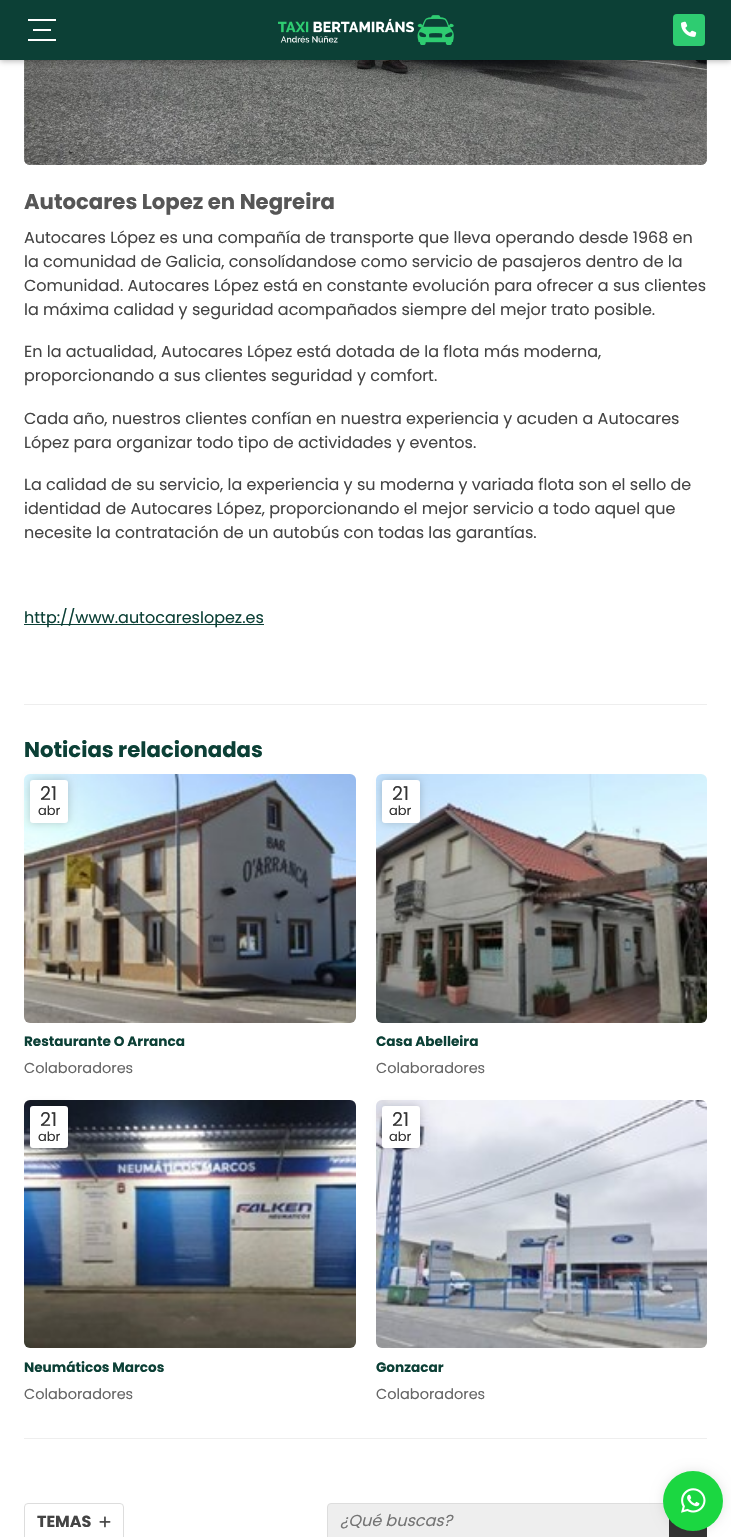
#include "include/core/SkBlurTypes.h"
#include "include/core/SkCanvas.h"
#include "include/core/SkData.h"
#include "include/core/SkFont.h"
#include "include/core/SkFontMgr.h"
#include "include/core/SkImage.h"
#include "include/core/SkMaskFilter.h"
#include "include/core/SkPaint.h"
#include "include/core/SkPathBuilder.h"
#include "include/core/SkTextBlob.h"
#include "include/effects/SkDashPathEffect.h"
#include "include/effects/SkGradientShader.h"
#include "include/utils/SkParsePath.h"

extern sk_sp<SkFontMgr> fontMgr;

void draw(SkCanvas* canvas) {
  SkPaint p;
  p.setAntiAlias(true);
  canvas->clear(SK_ColorWHITE);
  canvas->drawImageRect(SkImages::DeferredFromEncodedData(SkData::MakeFromFileName("images/3.png")), SkRect::MakeLTRB(24, 159, 707, 165), SkSamplingOptions());
  canvas->drawImageRect(SkImages::DeferredFromEncodedData(SkData::MakeFromFileName("images/4.png")), SkRect::MakeLTRB(24, 60, 707, 165), SkSamplingOptions());
  p.setColor(SkColorSetARGB(77, 0, 0, 0));
  p.setMaskFilter(SkMaskFilter::MakeBlur(kNormal_SkBlurStyle, 3));
  canvas->drawRect(SkRect::MakeLTRB(0, 1, 731, 61), p);
  p.setMaskFilter(nullptr);
  p.setColor(SkColorSetRGB(12, 64, 54));
  canvas->drawRect(SkRect::MakeLTRB(0, 0, 731, 60), p);
  p.setColor(SK_ColorWHITE);
  canvas->drawRect(SkRect::MakeLTRB(28, 19, 56, 21), p);
  canvas->drawRect(SkRect::MakeLTRB(33, 29, 51, 31), p);
  canvas->drawRect(SkRect::MakeLTRB(28, 39, 56, 41), p);
  canvas->drawImageRect(SkImages::DeferredFromEncodedData(SkData::MakeFromFileName("images/1.png")), SkRect::MakeLTRB(278, 15, 454, 45), SkSamplingOptions());
  p.setColor(SkColorSetRGB(46, 204, 113));
  canvas->drawRoundRect(SkRect::MakeLTRB(673, 14, 705, 46), 4, 4, p);
  canvas->drawImageRect(SkImages::DeferredFromEncodedData(SkData::MakeFromFileName("images/2.png")), SkRect::MakeLTRB(681, 21, 697, 37), SkSamplingOptions());
  p.setColor(SkColorSetRGB(12, 64, 54));
  canvas->drawRect(SkRect::MakeLTRB(24, 624, 264, 625), p);
  p.setColor(SkColorSetRGB(238, 238, 238));
  canvas->drawRect(SkRect::MakeLTRB(24, 704, 707, 705), p);
  canvas->drawRect(SkRect::MakeLTRB(24, 1438, 707, 1439), p);
  canvas->drawImageRect(SkImages::DeferredFromEncodedData(SkData::MakeFromFileName("images/5.png")), SkRect::MakeLTRB(24, 774, 356, 1023), SkSamplingOptions());
  p.setColor(SkColorSetARGB(51, 0, 0, 0));
  p.setMaskFilter(SkMaskFilter::MakeBlur(kNormal_SkBlurStyle, 4));
  canvas->drawRoundRect(SkRect::MakeLTRB(30, 780, 68, 823), 3, 3, p);
  p.setMaskFilter(nullptr);
  p.setColor(SK_ColorWHITE);
  canvas->drawRoundRect(SkRect::MakeLTRB(30, 780, 68, 823), 3, 3, p);
  canvas->drawImageRect(SkImages::DeferredFromEncodedData(SkData::MakeFromFileName("images/6.png")), SkRect::MakeLTRB(376, 774, 707, 1023), SkSamplingOptions());
  p.setColor(SkColorSetARGB(51, 0, 0, 0));
  p.setMaskFilter(SkMaskFilter::MakeBlur(kNormal_SkBlurStyle, 4));
  canvas->drawRoundRect(SkRect::MakeLTRB(382, 780, 420, 823), 3, 3, p);
  p.setMaskFilter(nullptr);
  p.setColor(SK_ColorWHITE);
  canvas->drawRoundRect(SkRect::MakeLTRB(382, 780, 420, 823), 3, 3, p);
  canvas->drawImageRect(SkImages::DeferredFromEncodedData(SkData::MakeFromFileName("images/7.png")), SkRect::MakeLTRB(24, 1100, 356, 1348), SkSamplingOptions());
  p.setColor(SkColorSetARGB(51, 0, 0, 0));
  p.setMaskFilter(SkMaskFilter::MakeBlur(kNormal_SkBlurStyle, 4));
  canvas->drawRoundRect(SkRect::MakeLTRB(30, 1106, 68, 1148), 3, 3, p);
  p.setMaskFilter(nullptr);
  p.setColor(SK_ColorWHITE);
  canvas->drawRoundRect(SkRect::MakeLTRB(30, 1106, 68, 1148), 3, 3, p);
  canvas->drawImageRect(SkImages::DeferredFromEncodedData(SkData::MakeFromFileName("images/8.png")), SkRect::MakeLTRB(376, 1100, 707, 1348), SkSamplingOptions());
  p.setColor(SkColorSetARGB(51, 0, 0, 0));
  p.setMaskFilter(SkMaskFilter::MakeBlur(kNormal_SkBlurStyle, 4));
  canvas->drawRoundRect(SkRect::MakeLTRB(382, 1106, 420, 1148), 3, 3, p);
  p.setMaskFilter(nullptr);
  p.setColor(SK_ColorWHITE);
  canvas->drawRoundRect(SkRect::MakeLTRB(382, 1106, 420, 1148), 3, 3, p);
  p.setStyle(SkPaint::kStroke_Style);
  p.setStrokeWidth(1);
  p.setColor(SkColorSetRGB(221, 221, 221));
  canvas->drawRoundRect(SkRect::MakeLTRB(24.5f, 1503.5f, 123.5f, 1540.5f), 3.5f, 3.5f, p);
  canvas->drawImageRect(SkImages::DeferredFromEncodedData(SkData::MakeFromFileName("images/9.png")), SkRect::MakeLTRB(99, 1516, 111, 1528), SkSamplingOptions());
  p.setStyle(SkPaint::kFill_Style);
  p.setColor(SkColorSetRGB(238, 238, 238));
  canvas->drawRoundRect(SkRect::MakeLTRB(327.5f, 1503.5f, 706.5f, 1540.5f), 3.5f, 3.5f, p);
  p.setStyle(SkPaint::kStroke_Style);
  p.setColor(SkColorSetRGB(221, 221, 221));
  canvas->drawRoundRect(SkRect::MakeLTRB(327.5f, 1503.5f, 706.5f, 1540.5f), 3.5f, 3.5f, p);
  p.setStyle(SkPaint::kFill_Style);
  p.setColor(SkColorSetRGB(51, 51, 51));
  canvas->drawRect(SkRect::MakeLTRB(669, 1519, 707, 1537), p);
  canvas->drawImageRect(SkImages::DeferredFromEncodedData(SkData::MakeFromFileName("images/10.png")), SkRect::MakeLTRB(696, 1530, 697, 1531), SkSamplingOptions());
  p.setColor(SkColorSetARGB(26, 0, 0, 0));
  p.setMaskFilter(SkMaskFilter::MakeBlur(kNormal_SkBlurStyle, 6));
  canvas->drawRoundRect(SkRect::MakeLTRB(663, 1471, 723, 1531), 30, 30, p);
  p.setMaskFilter(nullptr);
  p.setColor(SkColorSetRGB(27, 215, 65));
  canvas->drawCircle(693, 1501, 30, p);
  canvas->drawImageRect(SkImages::DeferredFromEncodedData(SkData::MakeFromFileName("images/11.png")), SkRect::MakeLTRB(681, 1488, 706, 1513), SkSamplingOptions());
  SkFont font1(fontMgr->matchFamilyStyle("Poppins", SkFontStyle::Bold()), 21.2f);
  font1.setSubpixel(true);
  p.setColor(SkColorSetRGB(86, 86, 86));
  canvas->drawString("Autocares Lopez en Negreira", 24, 209, font1, p);
  SkFont font2(fontMgr->matchFamilyStyle("Poppins", SkFontStyle::Normal()), 16);
  font2.setSubpixel(true);
  p.setColor(SkColorSetRGB(68, 68, 68));
  canvas->drawString("Autocares López es una compañía de transporte que lleva operando desde 1968 en", 24, 243, font2, p);
  canvas->drawString("la comunidad de Galicia, consolídandose como servicio de pasajeros dentro de la", 24, 267, font2, p);
  canvas->drawString("Comunidad. Autocares López está en constante evolución para ofrecer a sus clientes", 24, 291, font2, p);
  canvas->drawString("la máxima calidad y seguridad acompañados siempre del mejor trato posible.", 24, 315, font2, p);
  canvas->drawString("En la actualidad, Autocares López está dotada de la flota más moderna,", 24, 357, font2, p);
  canvas->drawString("proporcionando a sus clientes seguridad y comfort.", 24, 381, font2, p);
  canvas->drawString("Cada año, nuestros clientes confían en nuestra experiencia y acuden a Autocares", 24, 424, font2, p);
  canvas->drawString("López para organizar todo tipo de actividades y eventos.", 24, 448, font2, p);
  canvas->drawString("La calidad de su servicio, la experiencia y su moderna y variada flota son el sello de", 24, 490, font2, p);
  canvas->drawString("identidad de Autocares López, proporcionando el mejor servicio a todo aquel que", 24, 514, font2, p);
  canvas->drawString("necesite la contratación de un autobús con todas las garantías.", 24, 538, font2, p);
  p.setColor(SkColorSetRGB(12, 64, 54));
  canvas->drawString("http://www.autocareslopez.es", 24, 623, font2, p);
  canvas->drawString("Noticias relacionadas", 24, 757, font1, p);
  SkFont font3(fontMgr->matchFamilyStyle("Poppins", SkFontStyle::Normal()), 19);
  font3.setSubpixel(true);
  p.setColor(SkColorSetRGB(51, 51, 51));
  canvas->drawString("21", 40, 800, font3, p);
  SkFont font4(fontMgr->matchFamilyStyle("Poppins", SkFontStyle::Normal()), 13);
  font4.setSubpixel(true);
  canvas->drawString("abr", 38, 815, font4, p);
  SkFont font5(fontMgr->matchFamilyStyle("Poppins", SkFontStyle::Bold()), 13.6f);
  font5.setSubpixel(true);
  p.setColor(SkColorSetRGB(12, 64, 54));
  canvas->drawString("Restaurante O Arranca", 24, 1046, font5, p);
  SkFont font6(fontMgr->matchFamilyStyle("Poppins", SkFontStyle::Normal()), 14.5f);
  font6.setSubpixel(true);
  p.setColor(SkColorSetRGB(102, 102, 102));
  canvas->drawString("Colaboradores", 24, 1073, font6, p);
  p.setColor(SkColorSetRGB(51, 51, 51));
  canvas->drawString("21", 392, 800, font3, p);
  canvas->drawString("abr", 389, 815, font4, p);
  p.setColor(SkColorSetRGB(12, 64, 54));
  canvas->drawString("Casa Abelleira", 376, 1046, font5, p);
  p.setColor(SkColorSetRGB(102, 102, 102));
  canvas->drawString("Colaboradores", 376, 1073, font6, p);
  p.setColor(SkColorSetRGB(51, 51, 51));
  canvas->drawString("21", 40, 1126, font3, p);
  canvas->drawString("abr", 38, 1141, font4, p);
  p.setColor(SkColorSetRGB(12, 64, 54));
  canvas->drawString("Neumáticos Marcos", 24, 1372, font5, p);
  p.setColor(SkColorSetRGB(102, 102, 102));
  canvas->drawString("Colaboradores", 24, 1399, font6, p);
  p.setColor(SkColorSetRGB(51, 51, 51));
  canvas->drawString("21", 392, 1126, font3, p);
  canvas->drawString("abr", 389, 1141, font4, p);
  p.setColor(SkColorSetRGB(12, 64, 54));
  canvas->drawString("Gonzacar", 376, 1372, font5, p);
  p.setColor(SkColorSetRGB(102, 102, 102));
  canvas->drawString("Colaboradores", 376, 1399, font6, p);
  SkFont font7(fontMgr->matchFamilyStyle("Poppins", SkFontStyle::Bold()), 16);
  font7.setSubpixel(true);
  p.setColor(SkColorSetRGB(68, 68, 68));
  canvas->drawString("TEMAS", 37, 1527, font7, p);
  SkFont font8(fontMgr->matchFamilyStyle("Poppins", SkFontStyle::Italic()), 16);
  font8.setSubpixel(true);
  p.setColor(SkColorSetRGB(117, 117, 117));
  canvas->drawString("¿Qué buscas?", 340, 1526, font8, p);
}
